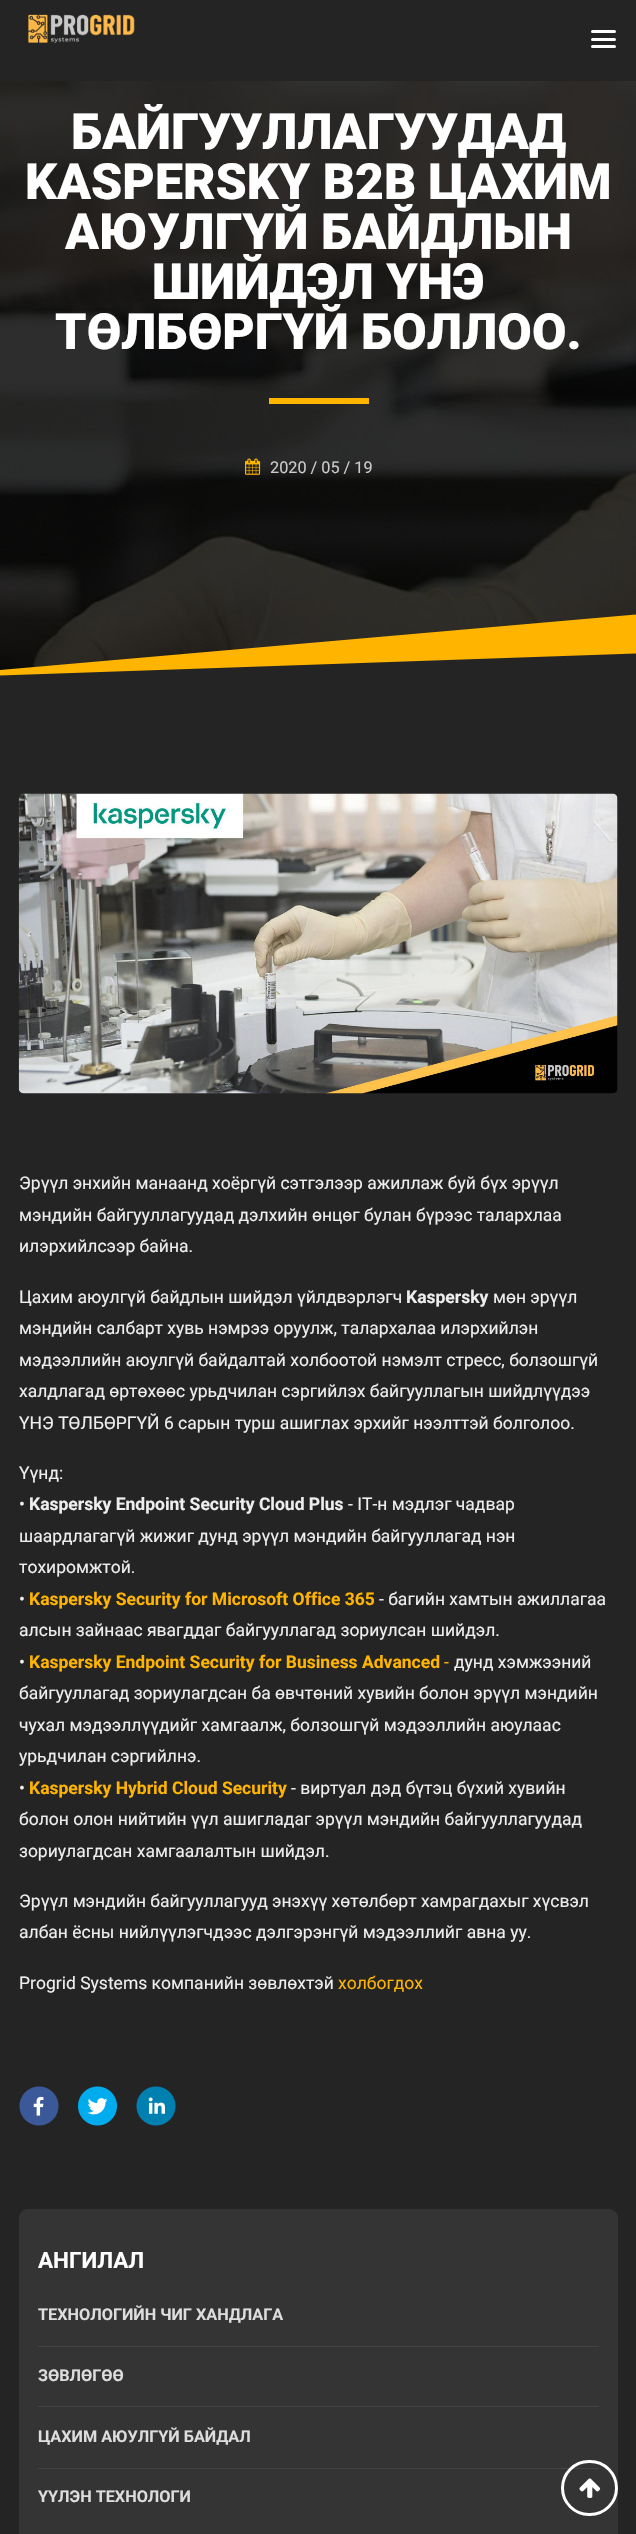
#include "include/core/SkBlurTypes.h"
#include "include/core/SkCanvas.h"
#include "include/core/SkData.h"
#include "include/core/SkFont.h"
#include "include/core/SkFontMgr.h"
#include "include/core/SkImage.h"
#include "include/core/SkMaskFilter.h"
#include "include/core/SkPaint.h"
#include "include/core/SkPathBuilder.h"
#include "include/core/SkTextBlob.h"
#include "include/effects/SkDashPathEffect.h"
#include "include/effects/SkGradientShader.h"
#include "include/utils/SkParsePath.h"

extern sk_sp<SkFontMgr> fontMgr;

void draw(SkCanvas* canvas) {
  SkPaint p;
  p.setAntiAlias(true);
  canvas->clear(SkColorSetRGB(36, 36, 36));
  canvas->drawImageRect(SkImages::DeferredFromEncodedData(SkData::MakeFromFileName("images/1.png")), SkRect::MakeLTRB(28, 14, 135, 43), SkSamplingOptions());
  p.setColor(SK_ColorWHITE);
  canvas->drawRoundRect(SkRect::MakeLTRB(591, 30, 616, 33), 1.5f, 1.5f, p);
  canvas->drawRoundRect(SkRect::MakeLTRB(591, 38, 616, 41), 1.5f, 1.5f, p);
  canvas->drawRoundRect(SkRect::MakeLTRB(591, 45, 616, 48), 1.5f, 1.5f, p);
  canvas->drawImageRect(SkImages::DeferredFromEncodedData(SkData::MakeFromFileName("images/2.png")), SkRect::MakeLTRB(0, 81, 636, 671), SkSamplingOptions());
  p.setColor(SkColorSetRGB(255, 180, 0));
  canvas->drawRect(SkRect::MakeLTRB(269, 398, 369, 404), p);
  canvas->drawImageRect(SkImages::DeferredFromEncodedData(SkData::MakeFromFileName("images/3.png")), SkRect::MakeLTRB(245, 458, 261, 475), SkSamplingOptions());
  canvas->drawPath(SkPathBuilder().moveTo(-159, 684).lineTo(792, 601).lineTo(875, 1551).lineTo(-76, 1634).close().detach(), p);
  p.setColor(SkColorSetRGB(36, 36, 36));
  canvas->drawPath(SkPathBuilder().moveTo(-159, 681).lineTo(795, 648).lineTo(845, 2078).lineTo(-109, 2111).close().detach(), p);
  canvas->drawImageRect(SkImages::DeferredFromEncodedData(SkData::MakeFromFileName("images/4.png")), SkRect::MakeLTRB(18, 793, 618, 1094), SkSamplingOptions());
  canvas->drawImageRect(SkImages::DeferredFromEncodedData(SkData::MakeFromFileName("images/5.png")), SkRect::MakeLTRB(19, 2086, 59, 2126), SkSamplingOptions());
  canvas->drawImageRect(SkImages::DeferredFromEncodedData(SkData::MakeFromFileName("images/6.png")), SkRect::MakeLTRB(78, 2086, 117, 2126), SkSamplingOptions());
  canvas->drawImageRect(SkImages::DeferredFromEncodedData(SkData::MakeFromFileName("images/7.png")), SkRect::MakeLTRB(136, 2086, 176, 2126), SkSamplingOptions());
  p.setColor(SkColorSetRGB(52, 52, 52));
  canvas->drawRoundRect(SkRect::MakeLTRB(19, 2209, 618, 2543), 9, 9, p);
  p.setColor(SkColorSetRGB(68, 68, 68));
  canvas->drawRect(SkRect::MakeLTRB(38, 2346, 599, 2347), p);
  canvas->drawRect(SkRect::MakeLTRB(38, 2406, 599, 2407), p);
  canvas->drawRect(SkRect::MakeLTRB(38, 2468, 599, 2469), p);
  p.setStyle(SkPaint::kStroke_Style);
  p.setStrokeWidth(3);
  p.setColor(SK_ColorWHITE);
  canvas->drawRoundRect(SkRect::MakeLTRB(562.5f, 2461.5f, 616.5f, 2514.5f), 26.5f, 26.5f, p);
  canvas->drawImageRect(SkImages::DeferredFromEncodedData(SkData::MakeFromFileName("images/8.png")), SkRect::MakeLTRB(579, 2478, 601, 2498), SkSamplingOptions());
  SkFont font1(fontMgr->matchFamilyStyle("Roboto", SkFontStyle(900, SkFontStyle::kNormal_Width, SkFontStyle::kUpright_Slant)), 50);
  font1.setSubpixel(true);
  p.setStyle(SkPaint::kFill_Style);
  canvas->drawString("БАЙГУУЛЛАГУУДАД", 71, 149, font1, p);
  canvas->drawString("KASPERSKY B2B ЦАХИМ", 25, 199, font1, p);
  canvas->drawString("АЮУЛГҮЙ БАЙДЛЫН", 65, 249, font1, p);
  canvas->drawString("ШИЙДЭЛ ҮНЭ", 152, 299, font1, p);
  canvas->drawString("ТӨЛБӨРГҮЙ БОЛЛОО.", 55, 349, font1, p);
  SkFont font2(fontMgr->matchFamilyStyle("Roboto", SkFontStyle::Normal()), 16.25f);
  font2.setSubpixel(true);
  p.setColor(SkColorSetRGB(204, 204, 204));
  canvas->drawString("2020 / 05 / 19", 270, 473, font2, p);
  SkFont font3(fontMgr->matchFamilyStyle("Roboto", SkFontStyle::Normal()), 17.5f);
  font3.setSubpixel(true);
  p.setColor(SkColorSetRGB(238, 238, 238));
  canvas->drawString("Эрүүл энхийн манаанд хоёргүй сэтгэлээр ажиллаж буй бүх эрүүл", 19, 1189, font3, p);
  canvas->drawString("мэндийн байгууллагуудад дэлхийн өнцөг булан бүрээс талархлаа", 19, 1221, font3, p);
  canvas->drawString("илэрхийлсээр байна.", 19, 1252, font3, p);
  canvas->drawString("Цахим аюулгүй байдлын шийдэл үйлдвэрлэгч", 19, 1303, font3, p);
  SkFont font4(fontMgr->matchFamilyStyle("Roboto", SkFontStyle::Bold()), 17.5f);
  font4.setSubpixel(true);
  canvas->drawString("Kaspersky", 406, 1303, font4, p);
  canvas->drawString("мөн эрүүл", 493, 1303, font3, p);
  canvas->drawString("мэндийн салбарт хувь нэмрээ оруулж, талархалаа илэрхийлэн", 19, 1334, font3, p);
  canvas->drawString("мэдээллийн аюулгүй байдалтай холбоотой нэмэлт стресс, болзошгүй", 19, 1366, font3, p);
  canvas->drawString("халдлагад өртөхөөс урьдчилан сэргийлэх байгууллагын шийдлүүдээ", 19, 1397, font3, p);
  canvas->drawString("ҮНЭ ТӨЛБӨРГҮЙ 6 сарын турш ашиглах эрхийг нээлттэй болголоо.", 19, 1429, font3, p);
  canvas->drawString("Үүнд:", 19, 1479, font3, p);
  canvas->drawString("•", 19, 1510, font3, p);
  canvas->drawString("Kaspersky Endpoint Security Cloud Plus", 29, 1510, font4, p);
  canvas->drawString("- IT-н мэдлэг чадвар", 348, 1510, font3, p);
  canvas->drawString("шаардлагагүй жижиг дунд эрүүл мэндийн байгууллагад нэн", 19, 1542, font3, p);
  canvas->drawString("тохиромжтой.", 19, 1573, font3, p);
  canvas->drawString("•", 19, 1605, font3, p);
  p.setColor(SkColorSetRGB(255, 180, 0));
  canvas->drawString("Kaspersky Security for Microsoft Office 365", 29, 1605, font4, p);
  p.setColor(SkColorSetRGB(238, 238, 238));
  canvas->drawString("- багийн хамтын ажиллагаа", 379, 1605, font3, p);
  canvas->drawString("алсын зайнаас явагддаг байгууллагад зориулсан шийдэл.", 19, 1636, font3, p);
  canvas->drawString("•", 19, 1668, font3, p);
  p.setColor(SkColorSetRGB(255, 180, 0));
  canvas->drawString("Kaspersky Endpoint Security for Business Advanced", 29, 1668, font4, p);
  canvas->drawString("-", 444, 1668, font3, p);
  p.setColor(SkColorSetRGB(238, 238, 238));
  canvas->drawString("дунд хэмжээний", 454, 1668, font3, p);
  canvas->drawString("байгууллагад зориулагдсан ба өвчтөний хувийн болон эрүүл мэндийн", 19, 1699, font3, p);
  canvas->drawString("чухал мэдээллүүдийг хамгаалж, болзошгүй мэдээллийн аюулаас", 19, 1731, font3, p);
  canvas->drawString("урьдчилан сэргийлнэ.", 19, 1762, font3, p);
  canvas->drawString("•", 19, 1794, font3, p);
  p.setColor(SkColorSetRGB(255, 180, 0));
  canvas->drawString("Kaspersky Hybrid Cloud Security", 29, 1794, font4, p);
  p.setColor(SkColorSetRGB(238, 238, 238));
  canvas->drawString("- виртуал дэд бүтэц бүхий хувийн", 291, 1794, font3, p);
  canvas->drawString("болон олон нийтийн үүл ашигладаг эрүүл мэндийн байгууллагуудад", 19, 1825, font3, p);
  canvas->drawString("зориулагдсан хамгаалалтын шийдэл.", 19, 1857, font3, p);
  canvas->drawString("Эрүүл мэндийн байгууллагууд энэхүү хөтөлбөрт хамрагдахыг хүсвэл", 19, 1907, font3, p);
  canvas->drawString("албан ёсны нийлүүлэгчдээс дэлгэрэнгүй мэдээллийг авна уу.", 19, 1938, font3, p);
  canvas->drawString("Progrid Systems компанийн зөвлөхтэй", 19, 1989, font3, p);
  p.setColor(SkColorSetRGB(255, 180, 0));
  canvas->drawString("холбогдох", 338, 1989, font3, p);
  SkFont font5(fontMgr->matchFamilyStyle("Roboto", SkFontStyle::Bold()), 22.5f);
  font5.setSubpixel(true);
  p.setColor(SK_ColorWHITE);
  canvas->drawString("АНГИЛАЛ", 38, 2268, font5, p);
  SkFont font6(fontMgr->matchFamilyStyle("Roboto", SkFontStyle::Bold()), 16.25f);
  font6.setSubpixel(true);
  p.setColor(SkColorSetRGB(221, 221, 221));
  canvas->drawString("ТЕХНОЛОГИЙН ЧИГ ХАНДЛАГА", 38, 2320, font6, p);
  canvas->drawString("ЗӨВЛӨГӨӨ", 38, 2381, font6, p);
  canvas->drawString("ЦАХИМ АЮУЛГҮЙ БАЙДАЛ", 38, 2442, font6, p);
  canvas->drawString("ҮҮЛЭН ТЕХНОЛОГИ", 38, 2502, font6, p);
}
